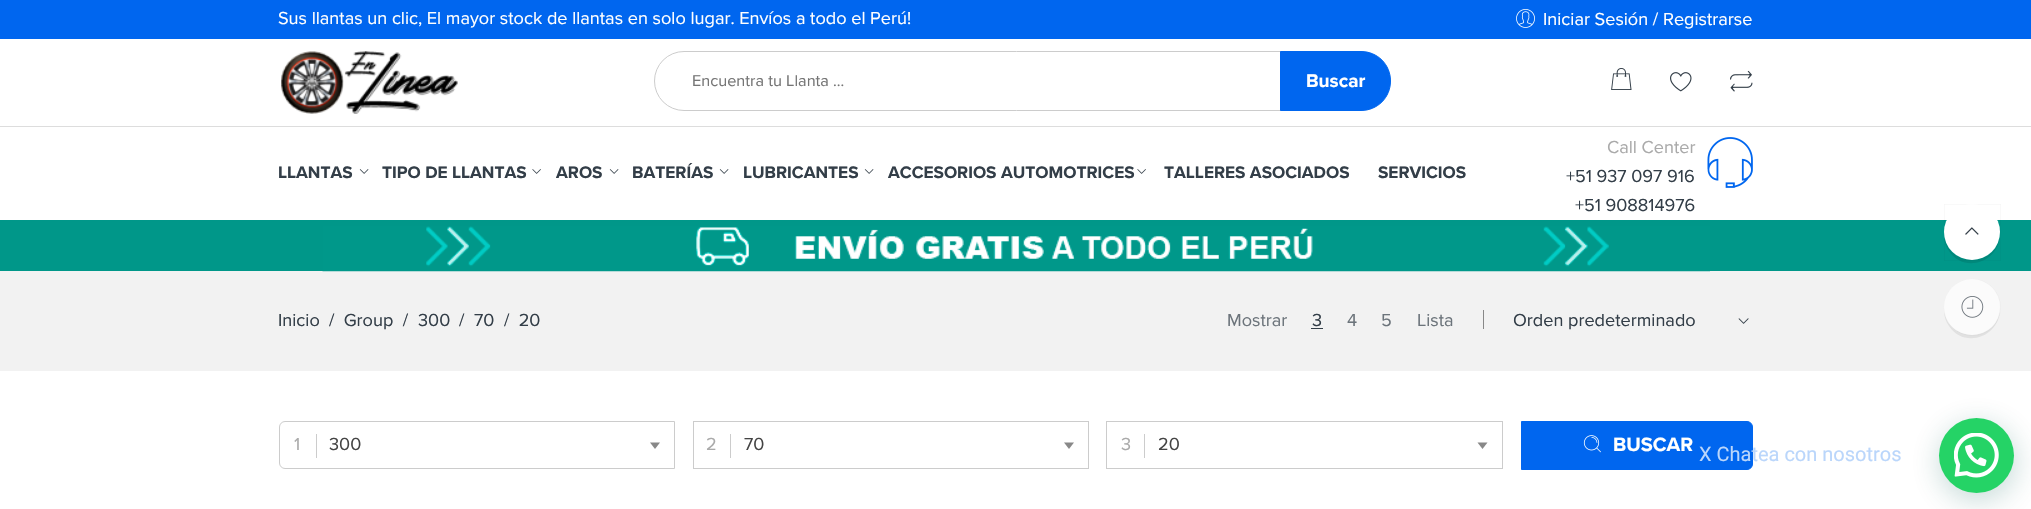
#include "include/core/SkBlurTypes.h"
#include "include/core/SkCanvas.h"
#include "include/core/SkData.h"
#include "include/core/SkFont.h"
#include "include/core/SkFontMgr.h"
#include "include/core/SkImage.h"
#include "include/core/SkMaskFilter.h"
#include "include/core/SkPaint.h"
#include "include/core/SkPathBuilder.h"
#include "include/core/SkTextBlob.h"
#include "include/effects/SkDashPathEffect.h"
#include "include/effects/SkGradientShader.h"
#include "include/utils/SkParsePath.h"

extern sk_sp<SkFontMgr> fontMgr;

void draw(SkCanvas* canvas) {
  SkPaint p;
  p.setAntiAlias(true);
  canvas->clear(SK_ColorWHITE);
  p.setColor(SkColorSetRGB(0, 102, 239));
  canvas->drawRect(SkRect::MakeLTRB(0, 0, 2031, 39), p);
  canvas->drawImageRect(SkImages::DeferredFromEncodedData(SkData::MakeFromFileName("images/1.png")), SkRect::MakeLTRB(1516, 9, 1535, 28), SkSamplingOptions());
  canvas->drawImageRect(SkImages::DeferredFromEncodedData(SkData::MakeFromFileName("images/2.png")), SkRect::MakeLTRB(281, 51, 458, 114), SkSamplingOptions());
  p.setStyle(SkPaint::kStroke_Style);
  p.setStrokeWidth(1);
  p.setColor(SkColorSetRGB(204, 204, 204));
  canvas->drawRoundRect(SkRect::MakeLTRB(654.5f, 51.5f, 1378.5f, 110.5f), 29.5f, 29.5f, p);
  p.setStyle(SkPaint::kFill_Style);
  p.setColor(SkColorSetRGB(0, 102, 239));
  canvas->drawPath(SkPathBuilder().moveTo(1280.5f, 51.5f).lineTo(1361, 51.5f).cubicTo(1377.5f, 51.5f, 1390.5f, 64.5f, 1390.5f, 81).cubicTo(1390.5f, 97.5f, 1377.5f, 110.5f, 1361, 110.5f).lineTo(1280.5f, 110.5f).close().detach(), p);
  p.setStyle(SkPaint::kStroke_Style);
  canvas->drawPath(SkPathBuilder().moveTo(1280.5f, 51.5f).lineTo(1361, 51.5f).cubicTo(1377.5f, 51.5f, 1390.5f, 64.5f, 1390.5f, 81).cubicTo(1390.5f, 97.5f, 1377.5f, 110.5f, 1361, 110.5f).lineTo(1280.5f, 110.5f).close().detach(), p);
  canvas->drawImageRect(SkImages::DeferredFromEncodedData(SkData::MakeFromFileName("images/3.png")), SkRect::MakeLTRB(1611, 68, 1632, 90), SkSamplingOptions());
  canvas->drawImageRect(SkImages::DeferredFromEncodedData(SkData::MakeFromFileName("images/4.png")), SkRect::MakeLTRB(1670, 72, 1692, 92), SkSamplingOptions());
  canvas->drawImageRect(SkImages::DeferredFromEncodedData(SkData::MakeFromFileName("images/5.png")), SkRect::MakeLTRB(1730, 70, 1753, 92), SkSamplingOptions());
  p.setStyle(SkPaint::kFill_Style);
  p.setColor(SkColorSetRGB(221, 221, 221));
  canvas->drawRect(SkRect::MakeLTRB(0, 126, 2031, 127), p);
  canvas->drawImageRect(SkImages::DeferredFromEncodedData(SkData::MakeFromFileName("images/6.png")), SkRect::MakeLTRB(359, 169, 369, 174), SkSamplingOptions());
  canvas->drawImageRect(SkImages::DeferredFromEncodedData(SkData::MakeFromFileName("images/7.png")), SkRect::MakeLTRB(532, 169, 541, 174), SkSamplingOptions());
  canvas->drawImageRect(SkImages::DeferredFromEncodedData(SkData::MakeFromFileName("images/6.png")), SkRect::MakeLTRB(609, 169, 619, 174), SkSamplingOptions());
  canvas->drawImageRect(SkImages::DeferredFromEncodedData(SkData::MakeFromFileName("images/6.png")), SkRect::MakeLTRB(719, 169, 729, 174), SkSamplingOptions());
  canvas->drawImageRect(SkImages::DeferredFromEncodedData(SkData::MakeFromFileName("images/6.png")), SkRect::MakeLTRB(864, 169, 874, 174), SkSamplingOptions());
  canvas->drawImageRect(SkImages::DeferredFromEncodedData(SkData::MakeFromFileName("images/7.png")), SkRect::MakeLTRB(1137, 169, 1146, 174), SkSamplingOptions());
  canvas->drawImageRect(SkImages::DeferredFromEncodedData(SkData::MakeFromFileName("images/8.png")), SkRect::MakeLTRB(1707, 137, 1753, 188), SkSamplingOptions());
  p.setColor(SkColorSetRGB(0, 151, 137));
  canvas->drawRect(SkRect::MakeLTRB(0, 220, 2031, 271), p);
  p.setColor(SkColorSetRGB(242, 242, 242));
  canvas->drawRect(SkRect::MakeLTRB(0, 271, 2031, 371), p);
  canvas->drawImageRect(SkImages::DeferredFromEncodedData(SkData::MakeFromFileName("images/9.png")), SkRect::MakeLTRB(322, 226, 1710, 272), SkSamplingOptions());
  p.setColor(SkColorSetRGB(51, 62, 72));
  canvas->drawRect(SkRect::MakeLTRB(1311, 328, 1323, 329), p);
  p.setColor(SkColorSetRGB(136, 136, 136));
  canvas->drawRect(SkRect::MakeLTRB(1483, 310, 1484, 329), p);
  canvas->drawImageRect(SkImages::DeferredFromEncodedData(SkData::MakeFromFileName("images/10.png")), SkRect::MakeLTRB(1738, 318, 1749, 324), SkSamplingOptions());
  p.setStyle(SkPaint::kStroke_Style);
  p.setColor(SkColorSetRGB(204, 204, 204));
  canvas->drawPath(SkPathBuilder().moveTo(285, 421.5f).lineTo(674.5f, 421.5f).lineTo(674.5f, 468.5f).lineTo(285, 468.5f).cubicTo(282, 468.5f, 279.5f, 466, 279.5f, 463).lineTo(279.5f, 427).cubicTo(279.5f, 424, 282, 421.5f, 285, 421.5f).close().detach(), p);
  p.setStyle(SkPaint::kFill_Style);
  canvas->drawRect(SkRect::MakeLTRB(316, 434, 317, 458), p);
  p.setColor(SkColorSetRGB(136, 136, 136));
  canvas->drawPath(SkPathBuilder().moveTo(650, 442.5f).lineTo(660, 442.5f).lineTo(655, 449).close().detach(), p);
  p.setStyle(SkPaint::kStroke_Style);
  p.setColor(SkColorSetRGB(204, 204, 204));
  canvas->drawRect(SkRect::MakeLTRB(693.5f, 421.5f, 1088.5f, 468.5f), p);
  p.setStyle(SkPaint::kFill_Style);
  canvas->drawRect(SkRect::MakeLTRB(730, 434, 731, 458), p);
  p.setColor(SkColorSetRGB(136, 136, 136));
  canvas->drawPath(SkPathBuilder().moveTo(1064, 442.5f).lineTo(1074, 442.5f).lineTo(1069, 449).close().detach(), p);
  p.setStyle(SkPaint::kStroke_Style);
  p.setColor(SkColorSetRGB(204, 204, 204));
  canvas->drawRect(SkRect::MakeLTRB(1106.5f, 421.5f, 1502.5f, 468.5f), p);
  p.setStyle(SkPaint::kFill_Style);
  canvas->drawRect(SkRect::MakeLTRB(1144, 434, 1145, 458), p);
  p.setColor(SkColorSetRGB(136, 136, 136));
  canvas->drawPath(SkPathBuilder().moveTo(1477.5f, 442.5f).lineTo(1487.5f, 442.5f).lineTo(1482.5f, 449).close().detach(), p);
  p.setColor(SkColorSetRGB(0, 102, 239));
  canvas->drawPath(SkPathBuilder().moveTo(1521.5f, 421.5f).lineTo(1747, 421.5f).cubicTo(1750, 421.5f, 1752.5f, 424, 1752.5f, 427).lineTo(1752.5f, 464).cubicTo(1752.5f, 467, 1750, 469.5f, 1747, 469.5f).lineTo(1521.5f, 469.5f).close().detach(), p);
  p.setStyle(SkPaint::kStroke_Style);
  canvas->drawPath(SkPathBuilder().moveTo(1521.5f, 421.5f).lineTo(1747, 421.5f).cubicTo(1750, 421.5f, 1752.5f, 424, 1752.5f, 427).lineTo(1752.5f, 464).cubicTo(1752.5f, 467, 1750, 469.5f, 1747, 469.5f).lineTo(1521.5f, 469.5f).close().detach(), p);
  canvas->drawImageRect(SkImages::DeferredFromEncodedData(SkData::MakeFromFileName("images/11.png")), SkRect::MakeLTRB(1583, 435, 1601, 453), SkSamplingOptions());
  p.setStrokeWidth(0.6f);
  p.setColor(SkColorSetARGB(10, 0, 0, 0));
  canvas->drawRect(SkRect::MakeLTRB(1944.3f, 204.3f, 2000.7f, 260.7f), p);
  p.setStyle(SkPaint::kFill_Style);
  p.setColor(SkColorSetARGB(26, 0, 0, 0));
  canvas->drawPath(SkPathBuilder().moveTo(1944, 236).cubicTo(1944, 241, 1946, 247, 1949, 251).cubicTo(1965, 275, 2001, 261, 2000, 233).cubicTo(1999, 267, 1949, 269, 1944, 236).close().detach(), p);
  p.setColor(SK_ColorWHITE);
  canvas->drawCircle(1972, 232, 28, p);
  canvas->drawImageRect(SkImages::DeferredFromEncodedData(SkData::MakeFromFileName("images/12.png")), SkRect::MakeLTRB(1965, 227, 1979, 235), SkSamplingOptions());
  p.setStyle(SkPaint::kStroke_Style);
  p.setColor(SkColorSetRGB(235, 235, 235));
  canvas->drawCircle(1972.5f, 307.5f, 28.2f, p);
  p.setStyle(SkPaint::kFill_Style);
  p.setColor(SkColorSetARGB(18, 0, 0, 0));
  canvas->drawPath(SkPathBuilder().moveTo(1944, 311).cubicTo(1944, 316, 1946, 322, 1949, 326).cubicTo(1965, 350, 2001, 336, 2000, 308).cubicTo(1999, 342, 1949, 344, 1944, 311).close().detach(), p);
  p.setColor(SkColorSetRGB(251, 251, 251));
  canvas->drawCircle(1972, 307, 28, p);
  canvas->drawImageRect(SkImages::DeferredFromEncodedData(SkData::MakeFromFileName("images/13.png")), SkRect::MakeLTRB(1961, 296, 1984, 318), SkSamplingOptions());
  p.setColor(SkColorSetARGB(61, 7, 94, 84));
  p.setMaskFilter(SkMaskFilter::MakeBlur(kNormal_SkBlurStyle, 15));
  canvas->drawRoundRect(SkRect::MakeLTRB(1940, 425, 2015, 500), 37.5f, 37.5f, p);
  p.setMaskFilter(nullptr);
  p.setColor(SkColorSetRGB(37, 211, 102));
  canvas->drawCircle(1976.5f, 455.5f, 37.5f, p);
  canvas->drawImageRect(SkImages::DeferredFromEncodedData(SkData::MakeFromFileName("images/14.png")), SkRect::MakeLTRB(1954, 433, 1999, 478), SkSamplingOptions());
  SkFont font1(fontMgr->matchFamilyStyle("Proxima Nova", SkFontStyle::Normal()), 18.1f);
  font1.setSubpixel(true);
  p.setColor(SK_ColorWHITE);
  canvas->drawString("Sus llantas un clic, El mayor stock de llantas en solo lugar. Envíos a todo el Perú!", 278, 24, font1, p);
  canvas->drawString("Iniciar Sesión / Registrarse", 1543, 25, font1, p);
  SkFont font2(fontMgr->matchFamilyStyle("Proxima Nova", SkFontStyle::Normal()), 16.25f);
  font2.setSubpixel(true);
  p.setColor(SkColorSetRGB(117, 117, 117));
  canvas->drawString("Encuentra tu Llanta ...", 692, 86, font2, p);
  SkFont font3(fontMgr->matchFamilyStyle("Proxima Nova", SkFontStyle::Bold()), 19);
  font3.setSubpixel(true);
  p.setColor(SK_ColorWHITE);
  canvas->drawString("Buscar", 1306, 87, font3, p);
  SkFont font4(fontMgr->matchFamilyStyle("Proxima Nova", SkFontStyle::Bold()), 17.25f);
  font4.setSubpixel(true);
  p.setColor(SkColorSetRGB(51, 62, 72));
  canvas->drawString("LLANTAS", 278, 178, font4, p);
  canvas->drawString("TIPO DE LLANTAS", 382, 178, font4, p);
  canvas->drawString("AROS", 556, 178, font4, p);
  canvas->drawString("BATERÍAS", 632, 178, font4, p);
  canvas->drawString("LUBRICANTES", 743, 178, font4, p);
  canvas->drawString("ACCESORIOS AUTOMOTRICES", 888, 178, font4, p);
  canvas->drawString("TALLERES ASOCIADOS", 1164, 178, font4, p);
  canvas->drawString("SERVICIOS", 1378, 178, font4, p);
  p.setColor(SkColorSetRGB(170, 170, 170));
  canvas->drawString("Call Center", 1607, 153, font1, p);
  p.setColor(SkColorSetRGB(51, 62, 72));
  canvas->drawString("+51 937 097 916", 1566, 182, font1, p);
  canvas->drawString("+51 908814976", 1575, 211, font1, p);
  canvas->drawString("Inicio", 278, 326, font1, p);
  canvas->drawString("/  Group  /", 329, 326, font1, p);
  canvas->drawString("300", 418, 326, font1, p);
  canvas->drawString("/", 459, 326, font1, p);
  canvas->drawString("70", 474, 326, font1, p);
  canvas->drawString("/  20", 504, 326, font1, p);
  p.setColor(SkColorSetRGB(108, 116, 123));
  canvas->drawString("Mostrar", 1227, 326, font1, p);
  p.setColor(SkColorSetRGB(51, 62, 72));
  canvas->drawString("3", 1312, 326, font1, p);
  p.setColor(SkColorSetRGB(108, 116, 123));
  canvas->drawString("4", 1347, 326, font1, p);
  canvas->drawString("5", 1381, 326, font1, p);
  canvas->drawString("Lista", 1417, 326, font1, p);
  p.setColor(SkColorSetRGB(51, 62, 72));
  canvas->drawString("Orden predeterminado", 1513, 326, font1, p);
  p.setColor(SkColorSetRGB(170, 170, 170));
  canvas->drawString("1", 294, 450, font1, p);
  p.setColor(SkColorSetRGB(68, 68, 68));
  canvas->drawString("300", 329, 450, font1, p);
  p.setColor(SkColorSetRGB(170, 170, 170));
  canvas->drawString("2", 706, 450, font1, p);
  p.setColor(SkColorSetRGB(68, 68, 68));
  canvas->drawString("70", 744, 450, font1, p);
  p.setColor(SkColorSetRGB(170, 170, 170));
  canvas->drawString("3", 1121, 450, font1, p);
  p.setColor(SkColorSetRGB(68, 68, 68));
  canvas->drawString("20", 1158, 450, font1, p);
  SkFont font5(fontMgr->matchFamilyStyle("Proxima Nova", SkFontStyle::Bold()), 20);
  font5.setSubpixel(true);
  p.setColor(SK_ColorWHITE);
  canvas->drawString("BUSCAR", 1613, 451, font5, p);
  SkFont font6(fontMgr->matchFamilyStyle("Roboto", SkFontStyle::Normal()), 20);
  font6.setSubpixel(true);
  p.setColor(SkColorSetRGB(186, 214, 251));
  canvas->drawString("X Chatea con nosotros", 1699, 461, font6, p);
}
